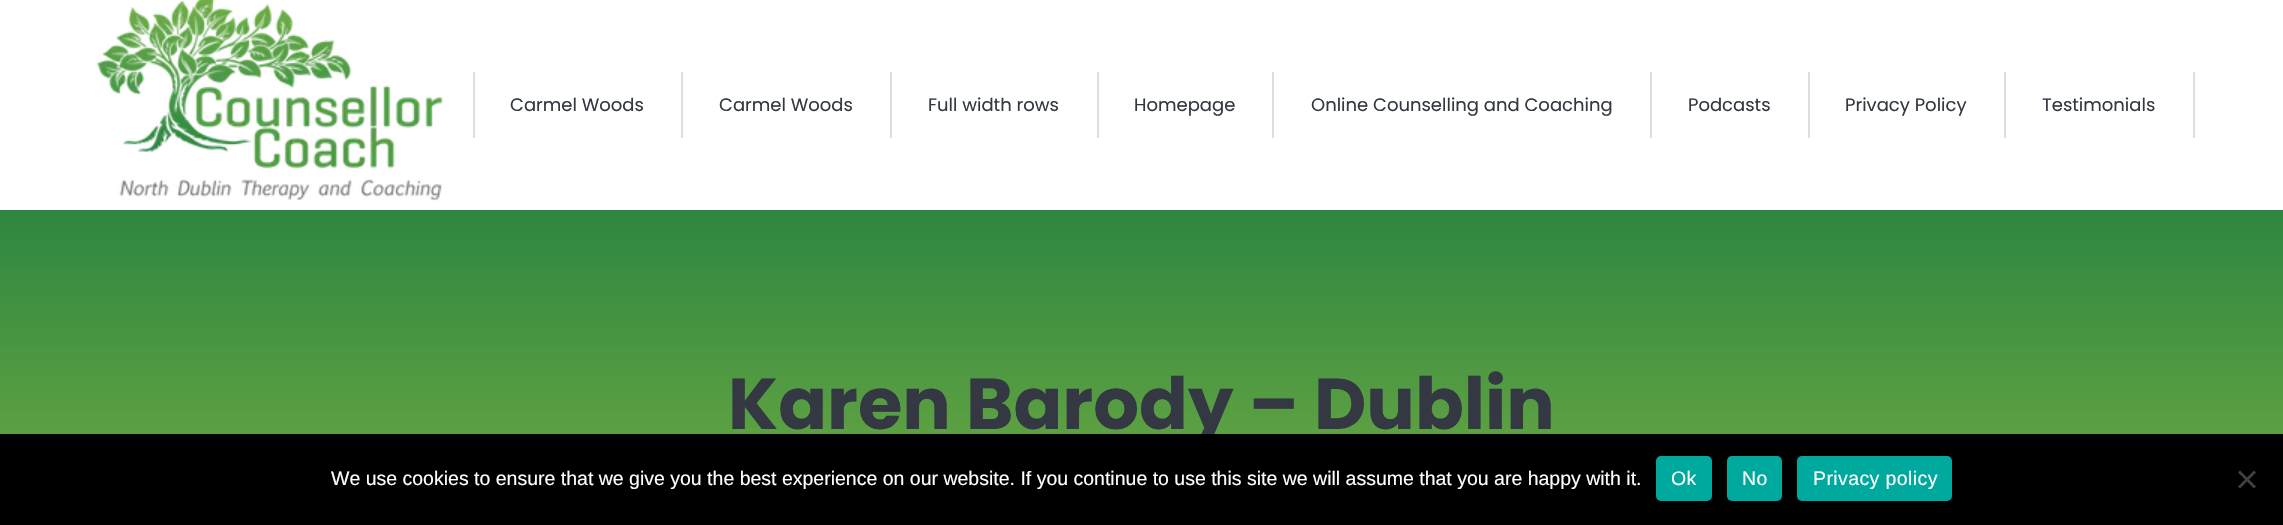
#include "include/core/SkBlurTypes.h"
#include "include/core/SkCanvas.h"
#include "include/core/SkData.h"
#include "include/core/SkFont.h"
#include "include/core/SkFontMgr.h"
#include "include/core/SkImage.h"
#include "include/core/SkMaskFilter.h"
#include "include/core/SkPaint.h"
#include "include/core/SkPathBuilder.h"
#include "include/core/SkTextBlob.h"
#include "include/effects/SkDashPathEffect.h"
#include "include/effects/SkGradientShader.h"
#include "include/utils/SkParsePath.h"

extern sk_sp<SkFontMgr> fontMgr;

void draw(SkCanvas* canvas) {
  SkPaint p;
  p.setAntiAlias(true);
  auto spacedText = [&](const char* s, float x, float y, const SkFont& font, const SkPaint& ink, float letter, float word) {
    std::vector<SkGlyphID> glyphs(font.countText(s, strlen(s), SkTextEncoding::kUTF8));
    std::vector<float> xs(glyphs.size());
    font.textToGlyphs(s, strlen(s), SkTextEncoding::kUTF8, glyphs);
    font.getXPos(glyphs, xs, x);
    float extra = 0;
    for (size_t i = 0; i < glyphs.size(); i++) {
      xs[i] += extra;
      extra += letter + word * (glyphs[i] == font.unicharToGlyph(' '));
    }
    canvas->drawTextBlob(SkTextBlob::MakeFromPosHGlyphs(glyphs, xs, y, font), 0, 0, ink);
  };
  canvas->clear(SK_ColorWHITE);
  canvas->drawImageRect(SkImages::DeferredFromEncodedData(SkData::MakeFromFileName("images/1.png")), SkRect::MakeLTRB(97, 0, 443, 201), SkSamplingOptions());
  p.setColor(SkColorSetRGB(222, 222, 222));
  canvas->drawRect(SkRect::MakeLTRB(473, 72, 475, 138), p);
  canvas->drawRect(SkRect::MakeLTRB(681, 72, 683, 138), p);
  canvas->drawRect(SkRect::MakeLTRB(890, 72, 892, 138), p);
  canvas->drawRect(SkRect::MakeLTRB(1097, 72, 1099, 138), p);
  canvas->drawRect(SkRect::MakeLTRB(1272, 72, 1274, 138), p);
  canvas->drawRect(SkRect::MakeLTRB(1650, 72, 1652, 138), p);
  canvas->drawRect(SkRect::MakeLTRB(1808, 72, 1810, 138), p);
  canvas->drawRect(SkRect::MakeLTRB(2004, 72, 2006, 138), p);
  canvas->drawRect(SkRect::MakeLTRB(2193, 72, 2195, 138), p);
  {
    const SkColor colors[] = {SkColorSetRGB(102, 166, 67), SkColorSetRGB(45, 134, 64)};
    const float stops[] = {0.3f, 1};
    const SkPoint ends[] = {{1142, 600}, {1142, 210}};
    p.setShader(SkGradientShader::MakeLinear(ends, colors, stops, 2, SkTileMode::kClamp));
    p.setAlpha(255);
  }
  canvas->drawRect(SkRect::MakeLTRB(0, 210, 2283, 434), p);
  SkFont font1(fontMgr->matchFamilyStyle("Poppins", SkFontStyle::Normal()), 18);
  font1.setSubpixel(true);
  p.setShader(nullptr);
  p.setColor(SkColorSetRGB(51, 56, 67));
  canvas->drawString("Carmel Woods", 510, 111, font1, p);
  canvas->drawString("Carmel Woods", 719, 111, font1, p);
  canvas->drawString("Full width rows", 928, 111, font1, p);
  canvas->drawString("Homepage", 1134, 111, font1, p);
  canvas->drawString("Online Counselling and Coaching", 1311, 111, font1, p);
  canvas->drawString("Podcasts", 1688, 111, font1, p);
  canvas->drawString("Privacy Policy", 1845, 111, font1, p);
  canvas->drawString("Testimonials", 2042, 111, font1, p);
  SkFont font2(fontMgr->matchFamilyStyle("Poppins", SkFontStyle::Bold()), 72);
  font2.setSubpixel(true);
  canvas->drawString("Karen Barody – Dublin", 728, 429, font2, p);
  p.setColor(SK_ColorBLACK);
  canvas->drawRect(SkRect::MakeLTRB(0, 434, 2283, 525), p);
  SkFont font3(fontMgr->matchFamilyStyle("Liberation Sans", SkFontStyle::Normal()), 19.5f);
  font3.setSubpixel(true);
  p.setColor(SK_ColorWHITE);
  canvas->drawString("We use cookies to ensure that we give you the best experience on our website. If you continue to use this site we will assume that you are happy with it.", 331, 485, font3, p);
  p.setColor(SkColorSetRGB(0, 169, 157));
  canvas->drawRoundRect(SkRect::MakeLTRB(1656, 456, 1712, 501), 5, 5, p);
  p.setColor(SK_ColorWHITE);
  spacedText("Ok", 1671, 485, font3, p, 0.4f, 0);
  p.setColor(SkColorSetRGB(0, 169, 157));
  canvas->drawRoundRect(SkRect::MakeLTRB(1727, 456, 1782, 501), 5, 5, p);
  p.setColor(SK_ColorWHITE);
  spacedText("No", 1742, 485, font3, p, 0.4f, 0);
  p.setColor(SkColorSetRGB(0, 169, 157));
  canvas->drawRoundRect(SkRect::MakeLTRB(1797, 456, 1952, 501), 5, 5, p);
  p.setColor(SK_ColorWHITE);
  spacedText("Privacy policy", 1813, 485, font3, p, 0.4f, 0);
  p.setColor(SkColorSetRGB(64, 64, 64));
  canvas->drawPath(SkPathBuilder().moveTo(2254, 470.5f).lineTo(2256, 472.5f).lineTo(2240, 488.5f).lineTo(2238, 486.5f).close().detach(), p);
  canvas->drawPath(SkPathBuilder().moveTo(2238, 472.5f).lineTo(2240, 470.5f).lineTo(2256, 486.5f).lineTo(2254, 488.5f).close().detach(), p);
}
